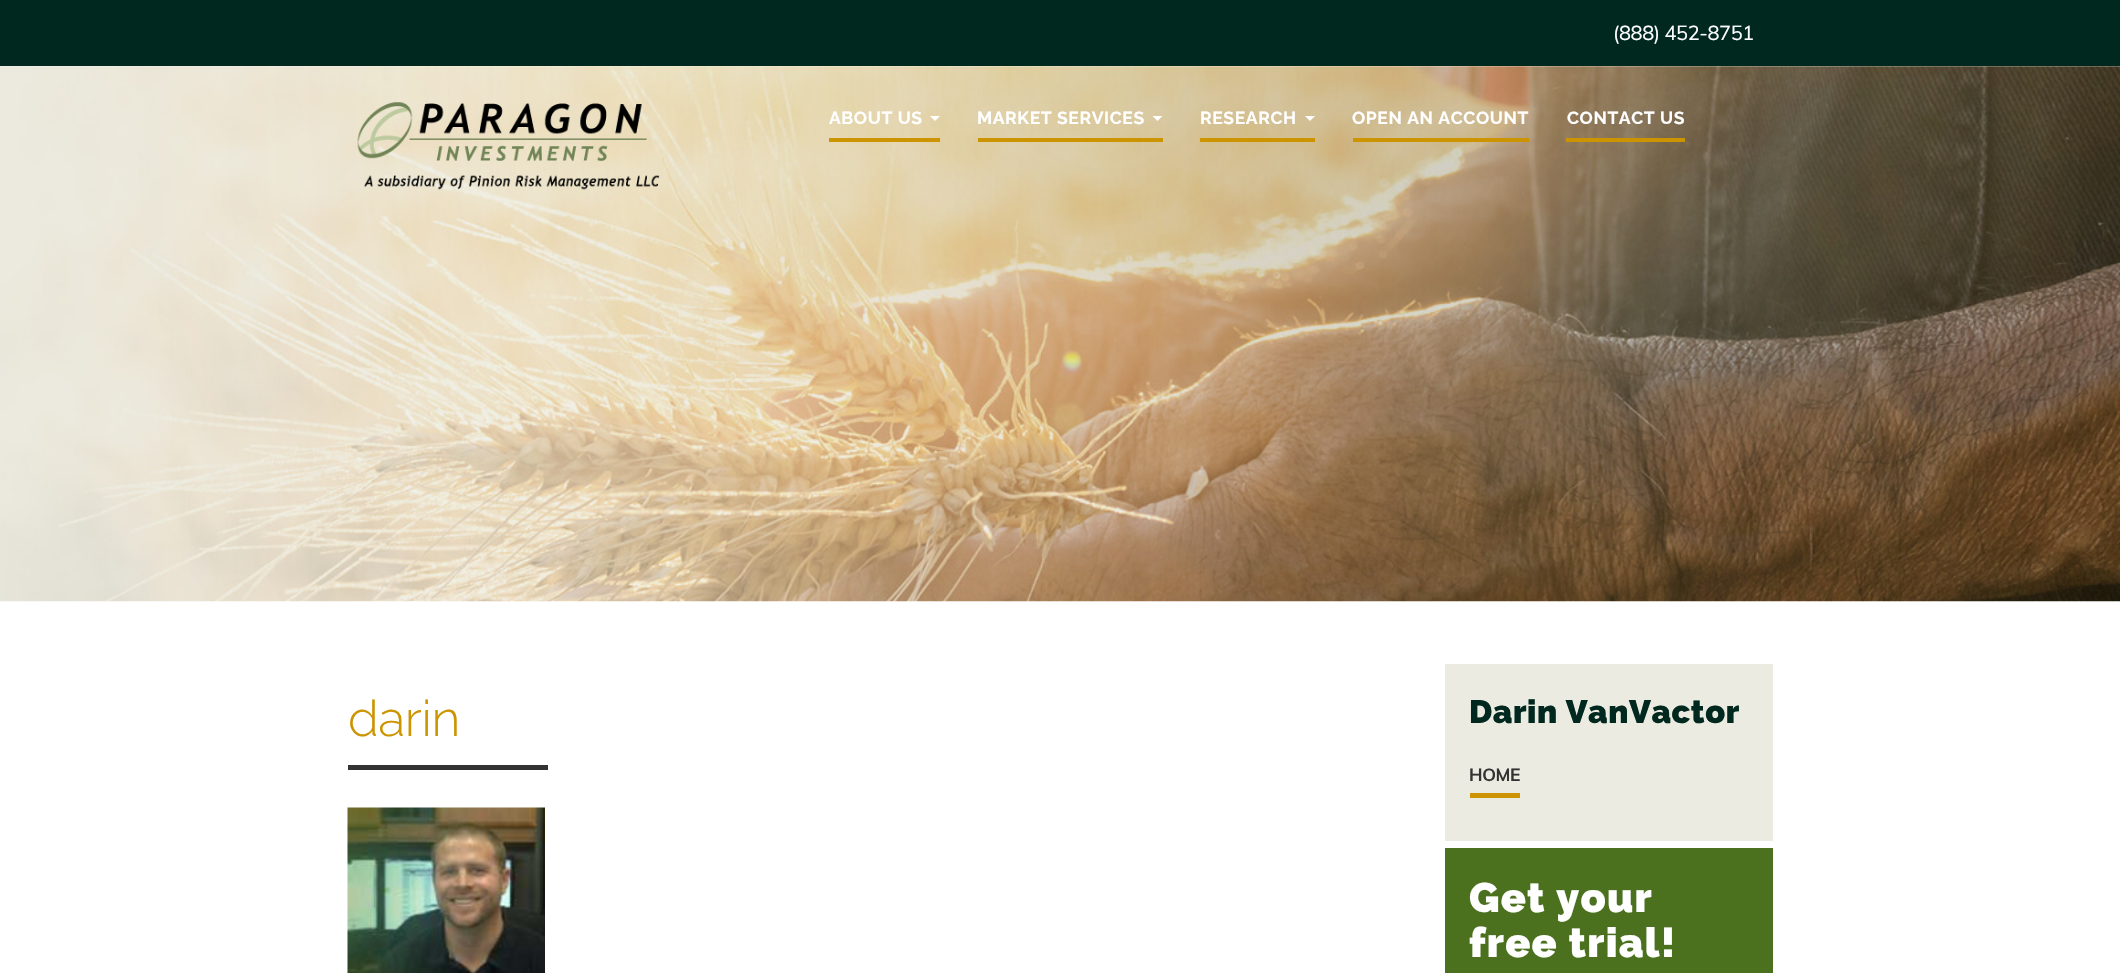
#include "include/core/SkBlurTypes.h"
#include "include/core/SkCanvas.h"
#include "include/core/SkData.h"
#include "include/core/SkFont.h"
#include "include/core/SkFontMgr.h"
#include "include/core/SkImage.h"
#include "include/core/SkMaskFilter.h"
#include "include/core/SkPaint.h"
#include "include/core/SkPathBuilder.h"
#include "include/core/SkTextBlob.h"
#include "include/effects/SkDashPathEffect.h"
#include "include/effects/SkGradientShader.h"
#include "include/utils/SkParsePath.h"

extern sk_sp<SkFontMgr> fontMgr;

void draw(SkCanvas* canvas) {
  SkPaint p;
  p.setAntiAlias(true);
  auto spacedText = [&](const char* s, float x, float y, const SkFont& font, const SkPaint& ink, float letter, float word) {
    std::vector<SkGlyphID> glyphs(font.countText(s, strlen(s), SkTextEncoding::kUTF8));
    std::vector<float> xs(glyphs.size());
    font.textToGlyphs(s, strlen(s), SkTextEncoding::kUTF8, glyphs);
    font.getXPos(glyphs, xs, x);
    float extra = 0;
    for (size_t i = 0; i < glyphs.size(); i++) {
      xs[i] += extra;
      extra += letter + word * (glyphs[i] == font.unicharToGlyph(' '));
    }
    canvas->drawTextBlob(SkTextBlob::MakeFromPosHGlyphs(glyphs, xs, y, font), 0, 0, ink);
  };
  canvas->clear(SK_ColorWHITE);
  p.setColor(SkColorSetRGB(0, 40, 31));
  canvas->drawRect(SkRect::MakeLTRB(0, 0, 2120, 66), p);
  canvas->drawImageRect(SkImages::DeferredFromEncodedData(SkData::MakeFromFileName("images/1.png")), SkRect::MakeLTRB(0, 66, 2120, 602), SkSamplingOptions());
  canvas->drawImageRect(SkImages::DeferredFromEncodedData(SkData::MakeFromFileName("images/2.png")), SkRect::MakeLTRB(357, 102, 660, 190), SkSamplingOptions());
  p.setColor(SkColorSetRGB(204, 148, 1));
  canvas->drawRect(SkRect::MakeLTRB(829, 138, 940, 142), p);
  p.setColor(SK_ColorWHITE);
  canvas->drawPath(SkPathBuilder().moveTo(930, 116).lineTo(940, 116).lineTo(935, 121).close().detach(), p);
  p.setColor(SkColorSetRGB(204, 148, 1));
  canvas->drawRect(SkRect::MakeLTRB(978, 138, 1163, 142), p);
  p.setColor(SK_ColorWHITE);
  canvas->drawPath(SkPathBuilder().moveTo(1152.5f, 116).lineTo(1162.5f, 116).lineTo(1157.5f, 121).close().detach(), p);
  p.setColor(SkColorSetRGB(204, 148, 1));
  canvas->drawRect(SkRect::MakeLTRB(1200, 138, 1315, 142), p);
  p.setColor(SK_ColorWHITE);
  canvas->drawPath(SkPathBuilder().moveTo(1305, 116).lineTo(1315, 116).lineTo(1310, 121).close().detach(), p);
  p.setColor(SkColorSetRGB(204, 148, 1));
  canvas->drawRect(SkRect::MakeLTRB(1353, 138, 1529, 142), p);
  canvas->drawRect(SkRect::MakeLTRB(1566, 138, 1685, 142), p);
  p.setColor(SkColorSetRGB(51, 51, 51));
  canvas->drawRect(SkRect::MakeLTRB(348, 765, 548, 770), p);
  canvas->drawImageRect(SkImages::DeferredFromEncodedData(SkData::MakeFromFileName("images/3.png")), SkRect::MakeLTRB(347, 807, 545, 973), SkSamplingOptions());
  p.setColor(SkColorSetRGB(235, 235, 225));
  canvas->drawRect(SkRect::MakeLTRB(1445, 664, 1773, 841), p);
  p.setColor(SkColorSetRGB(204, 148, 1));
  canvas->drawRect(SkRect::MakeLTRB(1470, 793, 1520, 798), p);
  p.setColor(SkColorSetRGB(75, 113, 30));
  canvas->drawRect(SkRect::MakeLTRB(1445, 848, 1773, 973), p);
  SkFont font1(fontMgr->matchFamilyStyle("Muli", SkFontStyle::Normal()), 20);
  font1.setSubpixel(true);
  p.setColor(SK_ColorWHITE);
  spacedText("(888) 452-8751", 1613, 40, font1, p, -0.4f, 0);
  SkFont font2(fontMgr->matchFamilyStyle("Raleway", SkFontStyle::Bold()), 17.5f);
  font2.setSubpixel(true);
  spacedText("ABOUT US", 829, 124, font2, p, 0.6f, 0);
  spacedText("MARKET SERVICES", 977, 124, font2, p, 0.6f, 0);
  spacedText("RESEARCH", 1200, 124, font2, p, 0.6f, 0);
  spacedText("OPEN AN ACCOUNT", 1352, 124, font2, p, 0.6f, 0);
  spacedText("CONTACT US", 1567, 124, font2, p, 0.6f, 0);
  SkFont font3(fontMgr->matchFamilyStyle("Raleway", SkFontStyle(300, SkFontStyle::kNormal_Width, SkFontStyle::kUpright_Slant)), 50);
  font3.setSubpixel(true);
  p.setColor(SkColorSetRGB(204, 148, 1));
  spacedText("darin", 348, 736, font3, p, -0.4f, 0);
  SkFont font4(fontMgr->matchFamilyStyle("Raleway", SkFontStyle(900, SkFontStyle::kNormal_Width, SkFontStyle::kUpright_Slant)), 32.5f);
  font4.setSubpixel(true);
  p.setColor(SkColorSetRGB(0, 40, 31));
  spacedText("Darin VanVactor", 1469, 723, font4, p, 0.6f, 0);
  SkFont font5(fontMgr->matchFamilyStyle("Muli", SkFontStyle::Bold()), 17.5f);
  font5.setSubpixel(true);
  p.setColor(SkColorSetRGB(51, 51, 51));
  spacedText("HOME", 1469, 781, font5, p, -0.4f, 0);
  SkFont font6(fontMgr->matchFamilyStyle("Raleway", SkFontStyle(900, SkFontStyle::kNormal_Width, SkFontStyle::kUpright_Slant)), 41.25f);
  font6.setSubpixel(true);
  p.setColor(SK_ColorWHITE);
  spacedText("Get your", 1469, 912, font6, p, 1.25f, 0);
  spacedText("free trial!", 1469, 957, font6, p, 1.25f, 0);
}
